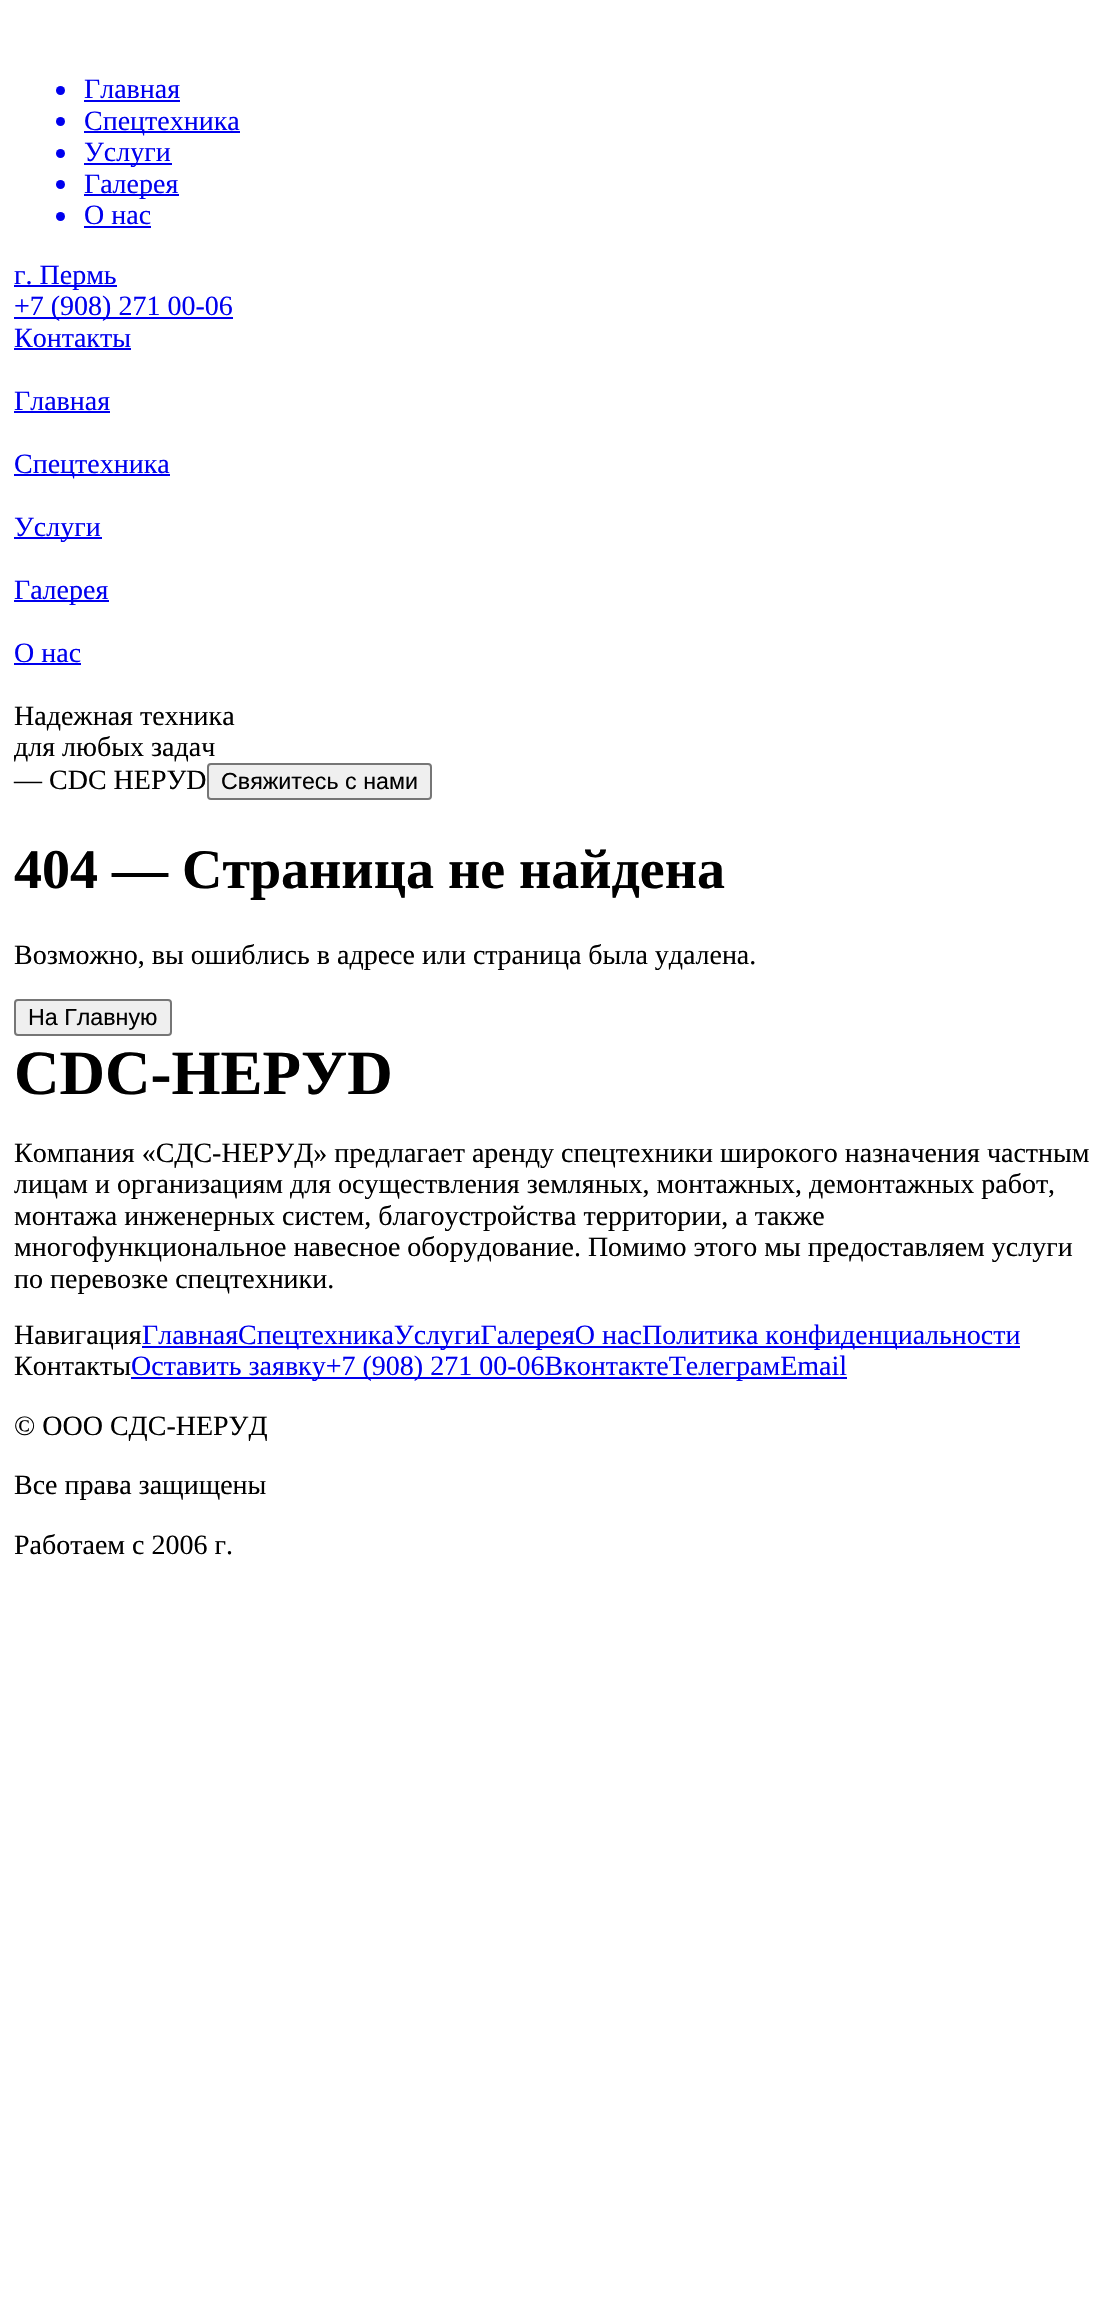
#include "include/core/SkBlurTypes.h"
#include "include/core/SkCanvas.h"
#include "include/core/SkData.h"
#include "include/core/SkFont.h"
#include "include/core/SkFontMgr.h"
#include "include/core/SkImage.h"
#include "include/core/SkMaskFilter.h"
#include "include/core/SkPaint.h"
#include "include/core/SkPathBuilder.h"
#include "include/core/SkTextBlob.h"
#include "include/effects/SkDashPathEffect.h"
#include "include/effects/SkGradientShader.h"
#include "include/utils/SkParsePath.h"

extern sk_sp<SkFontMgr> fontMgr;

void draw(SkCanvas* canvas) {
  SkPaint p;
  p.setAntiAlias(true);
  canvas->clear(SK_ColorWHITE);
  p.setColor(SkColorSetRGB(0, 0, 238));
  canvas->drawCircle(60.5f, 90.5f, 4.5f, p);
  canvas->drawRect(SkRect::MakeLTRB(84, 100, 180, 102), p);
  canvas->drawCircle(60.5f, 121.5f, 4.5f, p);
  canvas->drawRect(SkRect::MakeLTRB(84, 131, 240, 133), p);
  canvas->drawCircle(60.5f, 153.5f, 4.5f, p);
  canvas->drawRect(SkRect::MakeLTRB(84, 163, 172, 165), p);
  canvas->drawCircle(60.5f, 184.5f, 4.5f, p);
  canvas->drawRect(SkRect::MakeLTRB(84, 194, 179, 196), p);
  canvas->drawCircle(60.5f, 216.5f, 4.5f, p);
  canvas->drawRect(SkRect::MakeLTRB(84, 226, 151, 228), p);
  canvas->drawRect(SkRect::MakeLTRB(14, 285, 117, 287), p);
  canvas->drawRect(SkRect::MakeLTRB(14, 317, 233, 319), p);
  canvas->drawRect(SkRect::MakeLTRB(14, 348, 131, 350), p);
  canvas->drawRect(SkRect::MakeLTRB(14, 411, 110, 413), p);
  canvas->drawRect(SkRect::MakeLTRB(14, 474, 170, 476), p);
  canvas->drawRect(SkRect::MakeLTRB(14, 537, 102, 539), p);
  canvas->drawRect(SkRect::MakeLTRB(14, 600, 109, 602), p);
  canvas->drawRect(SkRect::MakeLTRB(14, 663, 81, 665), p);
  p.setColor(SkColorSetRGB(239, 239, 239));
  canvas->drawRoundRect(SkRect::MakeLTRB(208, 764, 431, 799), 3, 3, p);
  p.setStyle(SkPaint::kStroke_Style);
  p.setStrokeWidth(2);
  p.setColor(SkColorSetRGB(118, 118, 118));
  canvas->drawRoundRect(SkRect::MakeLTRB(208, 764, 431, 799), 3, 3, p);
  p.setStyle(SkPaint::kFill_Style);
  p.setColor(SkColorSetRGB(239, 239, 239));
  canvas->drawRoundRect(SkRect::MakeLTRB(15, 1000, 171, 1035), 3, 3, p);
  p.setStyle(SkPaint::kStroke_Style);
  p.setColor(SkColorSetRGB(118, 118, 118));
  canvas->drawRoundRect(SkRect::MakeLTRB(15, 1000, 171, 1035), 3, 3, p);
  p.setStyle(SkPaint::kFill_Style);
  p.setColor(SkColorSetRGB(0, 0, 238));
  canvas->drawRect(SkRect::MakeLTRB(142, 1346, 1020, 1348), p);
  canvas->drawRect(SkRect::MakeLTRB(131, 1377, 847, 1379), p);
  SkFont font1(fontMgr->matchFamilyStyle("Liberation Serif", SkFontStyle::Normal()), 28);
  font1.setSubpixel(true);
  canvas->drawString("Главная", 84, 98, font1, p);
  canvas->drawString("Спецтехника", 84, 130, font1, p);
  canvas->drawString("Услуги", 84, 161, font1, p);
  canvas->drawString("Галерея", 84, 193, font1, p);
  canvas->drawString("О нас", 84, 224, font1, p);
  canvas->drawString("г. Пермь", 14, 284, font1, p);
  canvas->drawString("+7 (908) 271 00-06", 14, 315, font1, p);
  canvas->drawString("Контакты", 14, 347, font1, p);
  canvas->drawString("Главная", 14, 410, font1, p);
  canvas->drawString("Спецтехника", 14, 473, font1, p);
  canvas->drawString("Услуги", 14, 536, font1, p);
  canvas->drawString("Галерея", 14, 599, font1, p);
  canvas->drawString("О нас", 14, 662, font1, p);
  p.setColor(SK_ColorBLACK);
  canvas->drawString("Надежная техника", 14, 725, font1, p);
  canvas->drawString("для любых задач", 14, 756, font1, p);
  canvas->drawString("— СDС НЕРУD", 14, 789, font1, p);
  SkFont font2(fontMgr->matchFamilyStyle("Liberation Sans", SkFontStyle::Normal()), 23.25f);
  font2.setSubpixel(true);
  canvas->drawString("Свяжитесь с нами", 221, 789, font2, p);
  SkFont font3(fontMgr->matchFamilyStyle("Liberation Serif", SkFontStyle::Bold()), 56);
  font3.setSubpixel(true);
  canvas->drawString("404 — Страница не найдена", 14, 888, font3, p);
  canvas->drawString("Возможно, вы ошиблись в адресе или страница была удалена.", 14, 964, font1, p);
  canvas->drawString("На Главную", 28, 1025, font2, p);
  SkFont font4(fontMgr->matchFamilyStyle("Liberation Serif", SkFontStyle::Bold()), 63);
  font4.setSubpixel(true);
  canvas->drawString("СDС-НЕРУD", 14, 1094, font4, p);
  canvas->drawString("Компания «СДС-НЕРУД» предлагает аренду спецтехники широкого назначения частным", 14, 1162, font1, p);
  canvas->drawString("лицам и организациям для осуществления земляных, монтажных, демонтажных работ,", 14, 1193, font1, p);
  canvas->drawString("монтажа инженерных систем, благоустройства территории, а также", 14, 1225, font1, p);
  canvas->drawString("многофункциональное навесное оборудование. Помимо этого мы предоставляем услуги", 14, 1256, font1, p);
  canvas->drawString("по перевозке спецтехники.", 14, 1288, font1, p);
  canvas->drawString("Навигация", 14, 1344, font1, p);
  p.setColor(SkColorSetRGB(0, 0, 238));
  canvas->drawString("ГлавнаяСпецтехникаУслугиГалереяО насПолитика конфиденциальности", 142, 1344, font1, p);
  p.setColor(SK_ColorBLACK);
  canvas->drawString("Контакты", 14, 1375, font1, p);
  p.setColor(SkColorSetRGB(0, 0, 238));
  canvas->drawString("Оставить заявку+7 (908) 271 00-06ВконтактеТелеграмEmail", 131, 1375, font1, p);
  p.setColor(SK_ColorBLACK);
  canvas->drawString("© ООО СДС-НЕРУД", 14, 1435, font1, p);
  canvas->drawString("Все права защищены", 14, 1494, font1, p);
  canvas->drawString("Работаем с 2006 г.", 14, 1554, font1, p);
}
